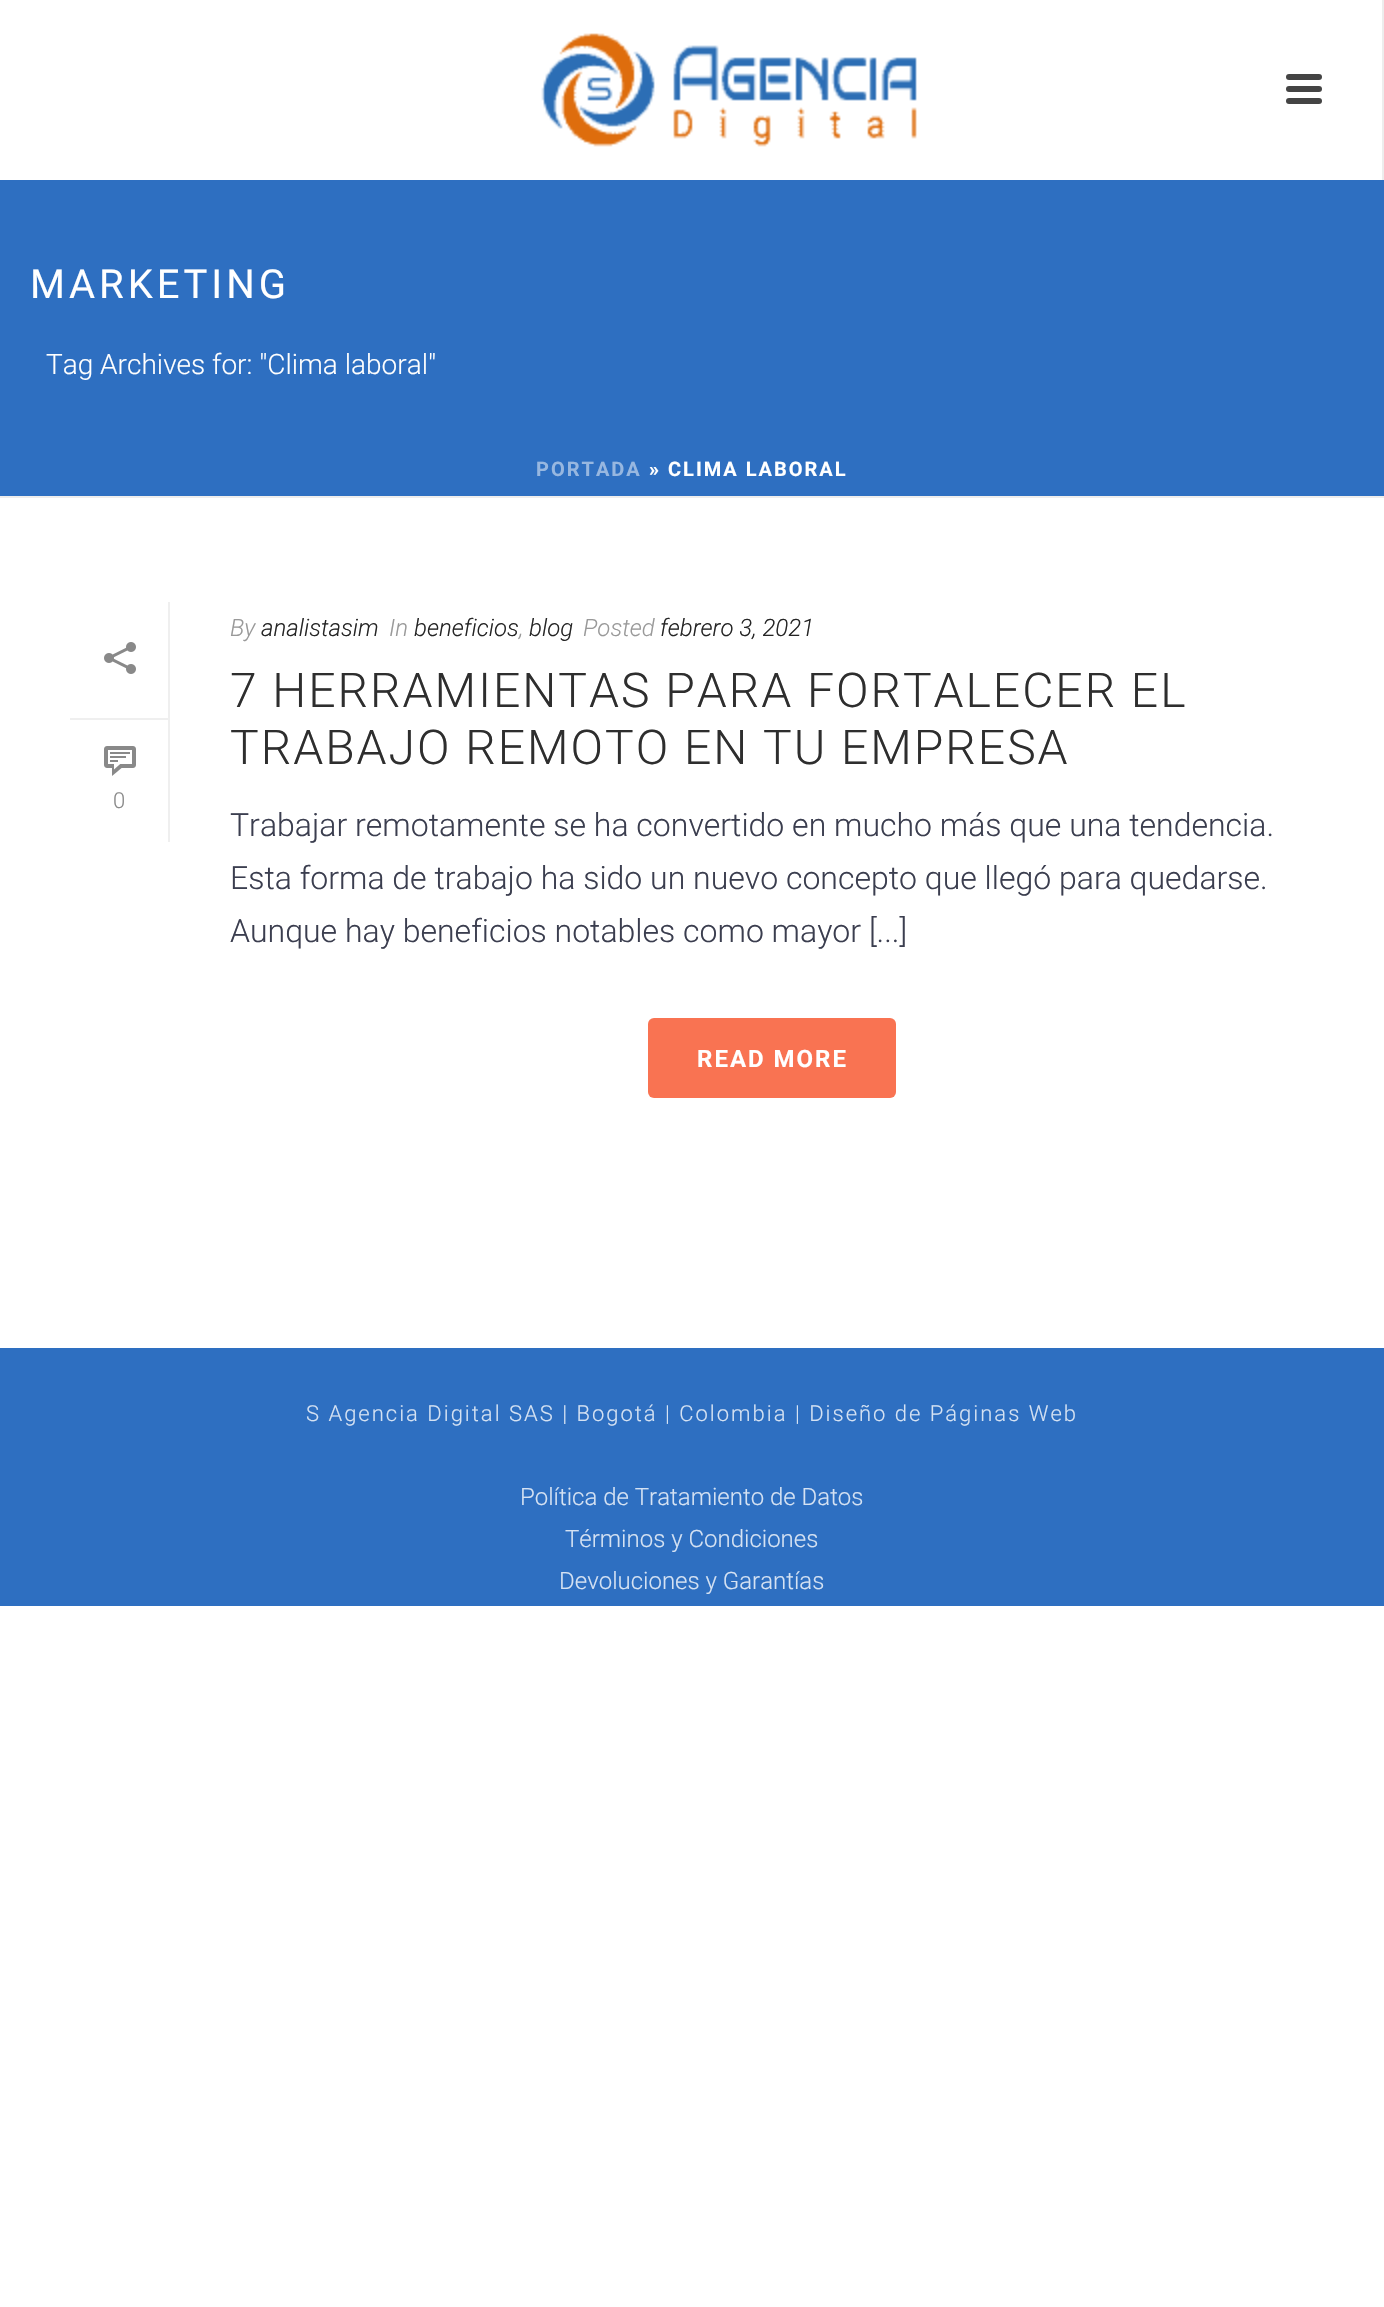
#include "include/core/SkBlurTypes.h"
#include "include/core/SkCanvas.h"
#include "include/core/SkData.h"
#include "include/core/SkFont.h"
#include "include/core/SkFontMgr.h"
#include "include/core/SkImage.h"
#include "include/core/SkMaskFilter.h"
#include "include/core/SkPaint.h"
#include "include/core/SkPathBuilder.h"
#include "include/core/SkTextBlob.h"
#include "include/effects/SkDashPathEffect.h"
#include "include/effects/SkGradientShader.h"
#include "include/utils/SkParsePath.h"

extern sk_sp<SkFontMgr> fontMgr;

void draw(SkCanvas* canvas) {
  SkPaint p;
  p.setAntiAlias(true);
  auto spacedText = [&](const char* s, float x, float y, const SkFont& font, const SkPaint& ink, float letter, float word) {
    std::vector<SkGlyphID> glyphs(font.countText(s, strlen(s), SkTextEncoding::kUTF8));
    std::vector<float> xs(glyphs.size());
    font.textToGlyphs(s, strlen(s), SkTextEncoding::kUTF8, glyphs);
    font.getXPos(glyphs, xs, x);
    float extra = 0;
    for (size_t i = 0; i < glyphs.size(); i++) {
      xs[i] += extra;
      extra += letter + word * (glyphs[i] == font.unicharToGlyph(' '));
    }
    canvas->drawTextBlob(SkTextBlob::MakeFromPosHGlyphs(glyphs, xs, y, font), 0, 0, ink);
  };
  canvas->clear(SK_ColorWHITE);
  p.setColor(SkColorSetRGB(46, 111, 193));
  canvas->drawRect(SkRect::MakeLTRB(0, 180, 1384, 496), p);
  p.setColor(SkColorSetRGB(237, 237, 237));
  canvas->drawRect(SkRect::MakeLTRB(0, 496, 1384, 498), p);
  canvas->drawRect(SkRect::MakeLTRB(1382, 0, 1384, 180), p);
  canvas->drawImageRect(SkImages::DeferredFromEncodedData(SkData::MakeFromFileName("images/1.png")), SkRect::MakeLTRB(541, 33, 917, 147), SkSamplingOptions());
  p.setColor(SkColorSetRGB(68, 68, 68));
  canvas->drawRoundRect(SkRect::MakeLTRB(1286, 74, 1322, 80), 3, 3, p);
  canvas->drawRoundRect(SkRect::MakeLTRB(1286, 86, 1322, 92), 3, 3, p);
  canvas->drawRoundRect(SkRect::MakeLTRB(1286, 98, 1322, 104), 3, 3, p);
  p.setColor(SkColorSetRGB(239, 239, 239));
  canvas->drawRect(SkRect::MakeLTRB(168, 602, 170, 842), p);
  canvas->drawRect(SkRect::MakeLTRB(70, 718, 168, 720), p);
  canvas->drawImageRect(SkImages::DeferredFromEncodedData(SkData::MakeFromFileName("images/2.png")), SkRect::MakeLTRB(104, 642, 136, 674), SkSamplingOptions());
  canvas->drawImageRect(SkImages::DeferredFromEncodedData(SkData::MakeFromFileName("images/3.png")), SkRect::MakeLTRB(104, 746, 136, 776), SkSamplingOptions());
  p.setColor(SkColorSetRGB(249, 115, 82));
  canvas->drawRoundRect(SkRect::MakeLTRB(648, 1018, 896, 1098), 6, 6, p);
  p.setColor(SkColorSetRGB(46, 111, 193));
  canvas->drawRect(SkRect::MakeLTRB(0, 1348, 1384, 1606), p);
  SkFont font1(fontMgr->matchFamilyStyle("Roboto", SkFontStyle::Normal()), 40);
  font1.setSubpixel(true);
  p.setColor(SK_ColorWHITE);
  spacedText("MARKETING", 30, 298, font1, p, 4, 0);
  SkFont font2(fontMgr->matchFamilyStyle("Roboto", SkFontStyle(300, SkFontStyle::kNormal_Width, SkFontStyle::kUpright_Slant)), 28);
  font2.setSubpixel(true);
  canvas->drawString("Tag Archives for: \"Clima laboral\"", 46, 374, font2, p);
  SkFont font3(fontMgr->matchFamilyStyle("Roboto", SkFontStyle::Bold()), 20);
  font3.setSubpixel(true);
  p.setColor(SkColorSetRGB(151, 183, 224));
  spacedText("PORTADA", 536, 476, font3, p, 2, 0);
  p.setColor(SK_ColorWHITE);
  spacedText("» CLIMA LABORAL", 649, 476, font3, p, 2, 0);
  SkFont font4(fontMgr->matchFamilyStyle("Roboto", SkFontStyle(300, SkFontStyle::kNormal_Width, SkFontStyle::kUpright_Slant)), 22);
  font4.setSubpixel(true);
  p.setColor(SkColorSetRGB(137, 137, 137));
  canvas->drawString("0", 113, 808, font4, p);
  SkFont font5(fontMgr->matchFamilyStyle("Roboto", SkFontStyle(300, SkFontStyle::kNormal_Width, SkFontStyle::kItalic_Slant)), 24);
  font5.setSubpixel(true);
  p.setColor(SkColorSetRGB(153, 153, 153));
  canvas->drawString("By", 230, 636, font5, p);
  p.setColor(SkColorSetRGB(37, 37, 37));
  canvas->drawString("analistasim", 261, 636, font5, p);
  p.setColor(SkColorSetRGB(153, 153, 153));
  canvas->drawString("In", 389, 636, font5, p);
  p.setColor(SkColorSetRGB(37, 37, 37));
  canvas->drawString("beneficios", 414, 636, font5, p);
  p.setColor(SkColorSetRGB(153, 153, 153));
  canvas->drawString(",", 519, 636, font5, p);
  p.setColor(SkColorSetRGB(37, 37, 37));
  canvas->drawString("blog", 529, 636, font5, p);
  p.setColor(SkColorSetRGB(153, 153, 153));
  canvas->drawString("Posted", 583, 636, font5, p);
  p.setColor(SkColorSetRGB(37, 37, 37));
  canvas->drawString("febrero 3, 2021", 660, 636, font5, p);
  SkFont font6(fontMgr->matchFamilyStyle("Roboto", SkFontStyle(300, SkFontStyle::kNormal_Width, SkFontStyle::kUpright_Slant)), 48);
  font6.setSubpixel(true);
  p.setColor(SkColorSetRGB(46, 46, 46));
  spacedText("7 HERRAMIENTAS PARA FORTALECER EL", 230, 707, font6, p, 2, 0);
  spacedText("TRABAJO REMOTO EN TU EMPRESA", 230, 764, font6, p, 2, 0);
  SkFont font7(fontMgr->matchFamilyStyle("Roboto", SkFontStyle(300, SkFontStyle::kNormal_Width, SkFontStyle::kUpright_Slant)), 32);
  font7.setSubpixel(true);
  p.setColor(SkColorSetRGB(59, 62, 79));
  canvas->drawString("Trabajar remotamente se ha convertido en mucho más que una tendencia.", 230, 836, font7, p);
  canvas->drawString("Esta forma de trabajo ha sido un nuevo concepto que llegó para quedarse.", 230, 889, font7, p);
  canvas->drawString("Aunque hay beneficios notables como mayor [...]", 230, 942, font7, p);
  SkFont font8(fontMgr->matchFamilyStyle("Roboto", SkFontStyle::Bold()), 24);
  font8.setSubpixel(true);
  p.setColor(SK_ColorWHITE);
  spacedText("READ MORE", 697, 1067, font8, p, 2, 0);
  p.setColor(SkColorSetRGB(213, 226, 243));
  spacedText("S Agencia Digital SAS | Bogotá | Colombia | Diseño de Páginas Web", 306, 1421, font4, p, 2, 0);
  SkFont font9(fontMgr->matchFamilyStyle("Roboto", SkFontStyle(300, SkFontStyle::kNormal_Width, SkFontStyle::kUpright_Slant)), 24);
  font9.setSubpixel(true);
  canvas->drawString("Política de Tratamiento de Datos", 520, 1505, font9, p);
  canvas->drawString("Términos y Condiciones", 565, 1547, font9, p);
  canvas->drawString("Devoluciones y Garantías", 559, 1589, font9, p);
}
